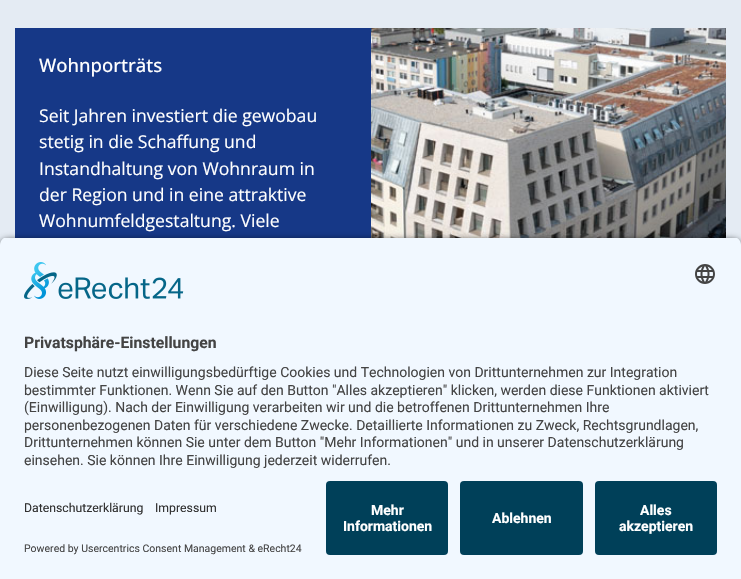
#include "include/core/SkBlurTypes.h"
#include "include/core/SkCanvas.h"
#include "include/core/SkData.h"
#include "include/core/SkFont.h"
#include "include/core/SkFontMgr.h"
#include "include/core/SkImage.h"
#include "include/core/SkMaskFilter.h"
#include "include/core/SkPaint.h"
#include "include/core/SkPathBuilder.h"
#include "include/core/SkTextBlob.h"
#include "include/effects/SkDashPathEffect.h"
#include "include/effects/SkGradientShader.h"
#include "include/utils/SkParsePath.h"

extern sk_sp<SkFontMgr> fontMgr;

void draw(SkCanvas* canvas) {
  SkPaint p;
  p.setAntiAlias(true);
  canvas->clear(SkColorSetRGB(228, 235, 243));
  p.setColor(SkColorSetRGB(22, 56, 135));
  canvas->drawRect(SkRect::MakeLTRB(15, 28, 371, 238), p);
  canvas->drawImageRect(SkImages::DeferredFromEncodedData(SkData::MakeFromFileName("images/1.png")), SkRect::MakeLTRB(371, 28, 726, 238), SkSamplingOptions());
  p.setColor(SkColorSetARGB(204, 0, 0, 0));
  p.setMaskFilter(SkMaskFilter::MakeBlur(kNormal_SkBlurStyle, 3.5f));
  canvas->drawRoundRect(SkRect::MakeLTRB(0, 240, 741, 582), 8, 8, p);
  p.setMaskFilter(nullptr);
  canvas->save();
  canvas->clipPath(SkPathBuilder().moveTo(8, 237).lineTo(733, 237).cubicTo(737.5f, 237, 741, 240.5f, 741, 245).lineTo(741, 473).lineTo(0, 473).lineTo(0, 245).cubicTo(0, 240.5f, 3.5f, 237, 8, 237).close().detach(), true);
  p.setColor(SkColorSetRGB(241, 248, 255));
  canvas->drawRect(SkRect::MakeLTRB(0, 238, 741, 473), p);
  canvas->restore();
  canvas->drawImageRect(SkImages::DeferredFromEncodedData(SkData::MakeFromFileName("images/2.png")), SkRect::MakeLTRB(24, 262, 184, 299), SkSamplingOptions());
  canvas->drawImageRect(SkImages::DeferredFromEncodedData(SkData::MakeFromFileName("images/3.png")), SkRect::MakeLTRB(695, 264, 715, 284), SkSamplingOptions());
  canvas->drawRect(SkRect::MakeLTRB(0, 473, 741, 579), p);
  p.setColor(SkColorSetRGB(0, 64, 89));
  canvas->drawRoundRect(SkRect::MakeLTRB(326, 481, 448, 555), 4, 4, p);
  canvas->drawRoundRect(SkRect::MakeLTRB(460, 481, 583, 555), 4, 4, p);
  canvas->drawRoundRect(SkRect::MakeLTRB(595, 481, 717, 555), 4, 4, p);
  SkFont font1(fontMgr->matchFamilyStyle("Open Sans", SkFontStyle(500, SkFontStyle::kNormal_Width, SkFontStyle::kUpright_Slant)), 18.5f);
  font1.setSubpixel(true);
  p.setColor(SK_ColorWHITE);
  canvas->drawString("Wohnporträts", 39, 72, font1, p);
  SkFont font2(fontMgr->matchFamilyStyle("Open Sans", SkFontStyle::Normal()), 17.6f);
  font2.setSubpixel(true);
  canvas->drawString("Seit Jahren investiert die gewobau", 39, 122, font2, p);
  canvas->drawString("stetig in die Schaffung und", 39, 148, font2, p);
  canvas->drawString("Instandhaltung von Wohnraum in", 39, 175, font2, p);
  canvas->drawString("der Region und in eine attraktive", 39, 201, font2, p);
  canvas->drawString("Wohnumfeldgestaltung. Viele", 39, 227, font2, p);
  SkFont font3(fontMgr->matchFamilyStyle("Roboto", SkFontStyle::Bold()), 15.75f);
  font3.setSubpixel(true);
  p.setColor(SkColorSetRGB(68, 68, 68));
  canvas->drawString("Privatsphäre-Einstellungen", 24, 348, font3, p);
  SkFont font4(fontMgr->matchFamilyStyle("Roboto", SkFontStyle::Normal()), 14);
  font4.setSubpixel(true);
  canvas->drawString("Diese Seite nutzt einwilligungsbedürftige Cookies und Technologien von Drittunternehmen zur Integration", 24, 377, font4, p);
  canvas->drawString("bestimmter Funktionen. Wenn Sie auf den Button \"Alles akzeptieren\" klicken, werden diese Funktionen aktiviert", 24, 395, font4, p);
  canvas->drawString("(Einwilligung). Nach der Einwilligung verarbeiten wir und die betroffenen Drittunternehmen Ihre", 24, 412, font4, p);
  canvas->drawString("personenbezogenen Daten für verschiedene Zwecke. Detaillierte Informationen zu Zweck, Rechtsgrundlagen,", 24, 430, font4, p);
  canvas->drawString("Drittunternehmen können Sie unter dem Button \"Mehr Informationen\" und in unserer Datenschutzerklärung", 24, 447, font4, p);
  canvas->drawString("einsehen. Sie können Ihre Einwilligung jederzeit widerrufen.", 24, 465, font4, p);
  SkFont font5(fontMgr->matchFamilyStyle("Roboto", SkFontStyle::Normal()), 12.25f);
  font5.setSubpixel(true);
  p.setColor(SkColorSetRGB(48, 48, 48));
  canvas->drawString("Datenschutzerklärung", 24, 512, font5, p);
  canvas->drawString("Impressum", 155, 512, font5, p);
  SkFont font6(fontMgr->matchFamilyStyle("Roboto", SkFontStyle::Normal()), 10.5f);
  font6.setSubpixel(true);
  p.setColor(SkColorSetRGB(68, 68, 68));
  canvas->drawString("Powered by Usercentrics Consent Management & eRecht24", 24, 552, font6, p);
  SkFont font7(fontMgr->matchFamilyStyle("Roboto", SkFontStyle::Bold()), 14);
  font7.setSubpixel(true);
  p.setColor(SK_ColorWHITE);
  canvas->drawString("Mehr", 371, 515, font7, p);
  canvas->drawString("Informationen", 343, 531, font7, p);
  canvas->drawString("Ablehnen", 492, 523, font7, p);
  canvas->drawString("Alles", 640, 515, font7, p);
  canvas->drawString("akzeptieren", 619, 531, font7, p);
}
